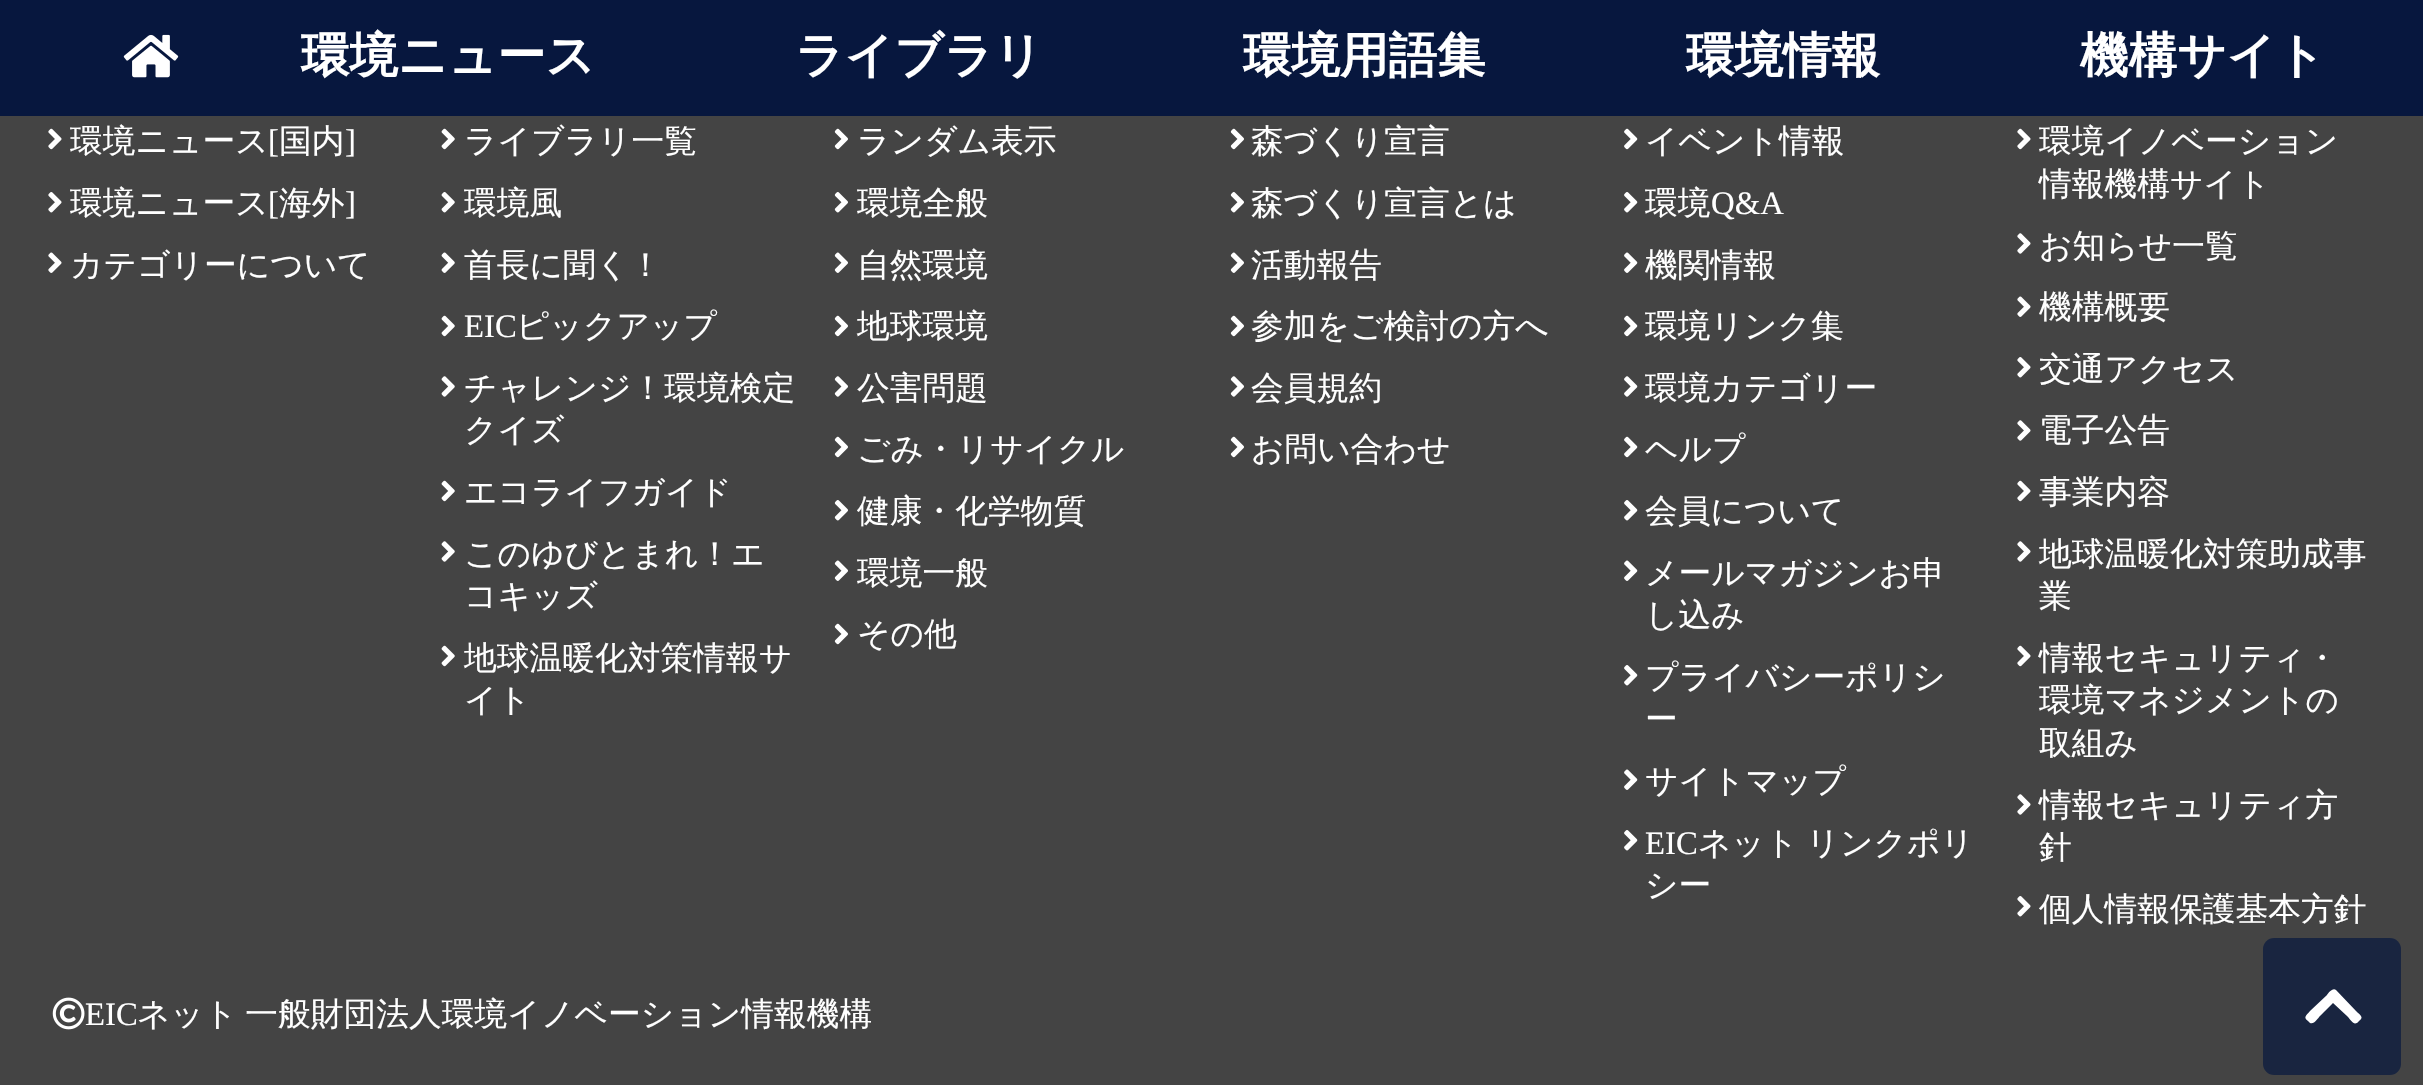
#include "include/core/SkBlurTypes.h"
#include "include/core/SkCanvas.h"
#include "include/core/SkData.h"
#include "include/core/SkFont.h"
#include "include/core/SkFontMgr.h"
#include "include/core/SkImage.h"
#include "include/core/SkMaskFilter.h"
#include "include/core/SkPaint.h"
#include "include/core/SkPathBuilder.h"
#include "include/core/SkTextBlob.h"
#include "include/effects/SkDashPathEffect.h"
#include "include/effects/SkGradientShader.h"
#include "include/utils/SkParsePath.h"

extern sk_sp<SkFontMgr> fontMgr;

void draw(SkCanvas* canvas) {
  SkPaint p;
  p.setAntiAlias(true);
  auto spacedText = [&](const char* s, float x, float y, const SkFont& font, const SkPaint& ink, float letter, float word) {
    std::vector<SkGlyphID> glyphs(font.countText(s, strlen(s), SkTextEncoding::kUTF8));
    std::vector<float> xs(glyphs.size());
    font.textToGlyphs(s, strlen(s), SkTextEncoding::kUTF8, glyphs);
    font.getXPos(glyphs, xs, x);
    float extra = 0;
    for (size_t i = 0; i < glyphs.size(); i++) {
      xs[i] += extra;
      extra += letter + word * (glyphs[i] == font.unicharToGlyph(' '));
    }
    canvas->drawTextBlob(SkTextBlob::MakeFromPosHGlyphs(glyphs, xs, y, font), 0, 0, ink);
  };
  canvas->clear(SkColorSetRGB(68, 68, 68));
  p.setColor(SkColorSetRGB(7, 23, 62));
  canvas->drawRect(SkRect::MakeLTRB(0, 0, 2423, 116), p);
  canvas->drawImageRect(SkImages::DeferredFromEncodedData(SkData::MakeFromFileName("images/1.png")), SkRect::MakeLTRB(123, 34, 179, 78), SkSamplingOptions());
  canvas->drawImageRect(SkImages::DeferredFromEncodedData(SkData::MakeFromFileName("images/2.png")), SkRect::MakeLTRB(48, 128, 62, 150), SkSamplingOptions());
  canvas->drawImageRect(SkImages::DeferredFromEncodedData(SkData::MakeFromFileName("images/3.png")), SkRect::MakeLTRB(48, 192, 62, 213), SkSamplingOptions());
  canvas->drawImageRect(SkImages::DeferredFromEncodedData(SkData::MakeFromFileName("images/4.png")), SkRect::MakeLTRB(48, 252, 62, 273), SkSamplingOptions());
  canvas->drawImageRect(SkImages::DeferredFromEncodedData(SkData::MakeFromFileName("images/5.png")), SkRect::MakeLTRB(441, 128, 455, 150), SkSamplingOptions());
  canvas->drawImageRect(SkImages::DeferredFromEncodedData(SkData::MakeFromFileName("images/6.png")), SkRect::MakeLTRB(441, 192, 455, 213), SkSamplingOptions());
  canvas->drawImageRect(SkImages::DeferredFromEncodedData(SkData::MakeFromFileName("images/7.png")), SkRect::MakeLTRB(441, 252, 455, 273), SkSamplingOptions());
  canvas->drawImageRect(SkImages::DeferredFromEncodedData(SkData::MakeFromFileName("images/5.png")), SkRect::MakeLTRB(441, 315, 455, 337), SkSamplingOptions());
  canvas->drawImageRect(SkImages::DeferredFromEncodedData(SkData::MakeFromFileName("images/8.png")), SkRect::MakeLTRB(441, 376, 455, 397), SkSamplingOptions());
  canvas->drawImageRect(SkImages::DeferredFromEncodedData(SkData::MakeFromFileName("images/5.png")), SkRect::MakeLTRB(441, 480, 455, 502), SkSamplingOptions());
  canvas->drawImageRect(SkImages::DeferredFromEncodedData(SkData::MakeFromFileName("images/8.png")), SkRect::MakeLTRB(441, 541, 455, 562), SkSamplingOptions());
  canvas->drawImageRect(SkImages::DeferredFromEncodedData(SkData::MakeFromFileName("images/5.png")), SkRect::MakeLTRB(441, 645, 455, 667), SkSamplingOptions());
  canvas->drawImageRect(SkImages::DeferredFromEncodedData(SkData::MakeFromFileName("images/9.png")), SkRect::MakeLTRB(834, 128, 848, 150), SkSamplingOptions());
  canvas->drawImageRect(SkImages::DeferredFromEncodedData(SkData::MakeFromFileName("images/10.png")), SkRect::MakeLTRB(834, 192, 848, 213), SkSamplingOptions());
  canvas->drawImageRect(SkImages::DeferredFromEncodedData(SkData::MakeFromFileName("images/11.png")), SkRect::MakeLTRB(834, 252, 848, 273), SkSamplingOptions());
  canvas->drawImageRect(SkImages::DeferredFromEncodedData(SkData::MakeFromFileName("images/9.png")), SkRect::MakeLTRB(834, 315, 848, 337), SkSamplingOptions());
  canvas->drawImageRect(SkImages::DeferredFromEncodedData(SkData::MakeFromFileName("images/12.png")), SkRect::MakeLTRB(834, 376, 848, 397), SkSamplingOptions());
  canvas->drawImageRect(SkImages::DeferredFromEncodedData(SkData::MakeFromFileName("images/9.png")), SkRect::MakeLTRB(834, 436, 848, 458), SkSamplingOptions());
  canvas->drawImageRect(SkImages::DeferredFromEncodedData(SkData::MakeFromFileName("images/10.png")), SkRect::MakeLTRB(834, 500, 848, 521), SkSamplingOptions());
  canvas->drawImageRect(SkImages::DeferredFromEncodedData(SkData::MakeFromFileName("images/11.png")), SkRect::MakeLTRB(834, 560, 848, 581), SkSamplingOptions());
  canvas->drawImageRect(SkImages::DeferredFromEncodedData(SkData::MakeFromFileName("images/9.png")), SkRect::MakeLTRB(834, 623, 848, 645), SkSamplingOptions());
  canvas->drawImageRect(SkImages::DeferredFromEncodedData(SkData::MakeFromFileName("images/9.png")), SkRect::MakeLTRB(1230, 128, 1244, 150), SkSamplingOptions());
  canvas->drawImageRect(SkImages::DeferredFromEncodedData(SkData::MakeFromFileName("images/10.png")), SkRect::MakeLTRB(1230, 192, 1244, 213), SkSamplingOptions());
  canvas->drawImageRect(SkImages::DeferredFromEncodedData(SkData::MakeFromFileName("images/11.png")), SkRect::MakeLTRB(1230, 252, 1244, 273), SkSamplingOptions());
  canvas->drawImageRect(SkImages::DeferredFromEncodedData(SkData::MakeFromFileName("images/9.png")), SkRect::MakeLTRB(1230, 315, 1244, 337), SkSamplingOptions());
  canvas->drawImageRect(SkImages::DeferredFromEncodedData(SkData::MakeFromFileName("images/12.png")), SkRect::MakeLTRB(1230, 376, 1244, 397), SkSamplingOptions());
  canvas->drawImageRect(SkImages::DeferredFromEncodedData(SkData::MakeFromFileName("images/9.png")), SkRect::MakeLTRB(1230, 436, 1244, 458), SkSamplingOptions());
  canvas->drawImageRect(SkImages::DeferredFromEncodedData(SkData::MakeFromFileName("images/13.png")), SkRect::MakeLTRB(1624, 128, 1638, 150), SkSamplingOptions());
  canvas->drawImageRect(SkImages::DeferredFromEncodedData(SkData::MakeFromFileName("images/14.png")), SkRect::MakeLTRB(1624, 192, 1638, 213), SkSamplingOptions());
  canvas->drawImageRect(SkImages::DeferredFromEncodedData(SkData::MakeFromFileName("images/15.png")), SkRect::MakeLTRB(1624, 252, 1638, 273), SkSamplingOptions());
  canvas->drawImageRect(SkImages::DeferredFromEncodedData(SkData::MakeFromFileName("images/13.png")), SkRect::MakeLTRB(1624, 315, 1638, 337), SkSamplingOptions());
  canvas->drawImageRect(SkImages::DeferredFromEncodedData(SkData::MakeFromFileName("images/16.png")), SkRect::MakeLTRB(1624, 376, 1638, 397), SkSamplingOptions());
  canvas->drawImageRect(SkImages::DeferredFromEncodedData(SkData::MakeFromFileName("images/13.png")), SkRect::MakeLTRB(1624, 436, 1638, 458), SkSamplingOptions());
  canvas->drawImageRect(SkImages::DeferredFromEncodedData(SkData::MakeFromFileName("images/14.png")), SkRect::MakeLTRB(1624, 500, 1638, 521), SkSamplingOptions());
  canvas->drawImageRect(SkImages::DeferredFromEncodedData(SkData::MakeFromFileName("images/15.png")), SkRect::MakeLTRB(1624, 560, 1638, 581), SkSamplingOptions());
  canvas->drawImageRect(SkImages::DeferredFromEncodedData(SkData::MakeFromFileName("images/14.png")), SkRect::MakeLTRB(1624, 665, 1638, 686), SkSamplingOptions());
  canvas->drawImageRect(SkImages::DeferredFromEncodedData(SkData::MakeFromFileName("images/15.png")), SkRect::MakeLTRB(1624, 769, 1638, 790), SkSamplingOptions());
  canvas->drawImageRect(SkImages::DeferredFromEncodedData(SkData::MakeFromFileName("images/14.png")), SkRect::MakeLTRB(1624, 830, 1638, 851), SkSamplingOptions());
  canvas->drawImageRect(SkImages::DeferredFromEncodedData(SkData::MakeFromFileName("images/2.png")), SkRect::MakeLTRB(2017, 128, 2031, 150), SkSamplingOptions());
  canvas->drawImageRect(SkImages::DeferredFromEncodedData(SkData::MakeFromFileName("images/17.png")), SkRect::MakeLTRB(2017, 233, 2031, 254), SkSamplingOptions());
  canvas->drawImageRect(SkImages::DeferredFromEncodedData(SkData::MakeFromFileName("images/4.png")), SkRect::MakeLTRB(2017, 296, 2031, 317), SkSamplingOptions());
  canvas->drawImageRect(SkImages::DeferredFromEncodedData(SkData::MakeFromFileName("images/3.png")), SkRect::MakeLTRB(2017, 357, 2031, 378), SkSamplingOptions());
  canvas->drawImageRect(SkImages::DeferredFromEncodedData(SkData::MakeFromFileName("images/17.png")), SkRect::MakeLTRB(2017, 420, 2031, 441), SkSamplingOptions());
  canvas->drawImageRect(SkImages::DeferredFromEncodedData(SkData::MakeFromFileName("images/2.png")), SkRect::MakeLTRB(2017, 480, 2031, 502), SkSamplingOptions());
  canvas->drawImageRect(SkImages::DeferredFromEncodedData(SkData::MakeFromFileName("images/17.png")), SkRect::MakeLTRB(2017, 541, 2031, 562), SkSamplingOptions());
  canvas->drawImageRect(SkImages::DeferredFromEncodedData(SkData::MakeFromFileName("images/2.png")), SkRect::MakeLTRB(2017, 645, 2031, 667), SkSamplingOptions());
  canvas->drawImageRect(SkImages::DeferredFromEncodedData(SkData::MakeFromFileName("images/17.png")), SkRect::MakeLTRB(2017, 794, 2031, 815), SkSamplingOptions());
  canvas->drawImageRect(SkImages::DeferredFromEncodedData(SkData::MakeFromFileName("images/3.png")), SkRect::MakeLTRB(2017, 896, 2031, 917), SkSamplingOptions());
  canvas->drawImageRect(SkImages::DeferredFromEncodedData(SkData::MakeFromFileName("images/18.png")), SkRect::MakeLTRB(52, 997, 85, 1030), SkSamplingOptions());
  p.setColor(SkColorSetRGB(25, 37, 64));
  canvas->drawRoundRect(SkRect::MakeLTRB(2263, 938, 2401, 1075), 11, 11, p);
  p.setColor(SK_ColorWHITE);
  canvas->drawPath(SkPathBuilder().moveTo(2336, 990).lineTo(2356, 1011).cubicTo(2361, 1016, 2364, 1017, 2359, 1021).cubicTo(2354, 1027, 2352, 1021, 2347, 1016).lineTo(2333, 1003).lineTo(2320, 1016).cubicTo(2318, 1018, 2314, 1025, 2310, 1023).lineTo(2308, 1021).cubicTo(2303, 1017, 2306, 1016, 2310, 1011).lineTo(2327, 995).cubicTo(2328, 993, 2333, 987, 2336, 990).close().detach(), p);
  SkFont font1(fontMgr->matchFamilyStyle("WenQuanYi Zen Hei", SkFontStyle::Bold()), 48.5f);
  font1.setSubpixel(true);
  canvas->drawString("環境ニュース", 301, 72, font1, p);
  canvas->drawString("ライブラリ", 795, 72, font1, p);
  canvas->drawString("環境用語集", 1243, 72, font1, p);
  canvas->drawString("環境情報", 1686, 72, font1, p);
  canvas->drawString("機構サイト", 2080, 72, font1, p);
  SkFont font2(fontMgr->matchFamilyStyle("WenQuanYi Zen Hei", SkFontStyle(500, SkFontStyle::kNormal_Width, SkFontStyle::kUpright_Slant)), 32.75f);
  font2.setSubpixel(true);
  canvas->drawString("環境ニュース", 70, 152, font2, p);
  SkFont font3(fontMgr->matchFamilyStyle("Liberation Serif", SkFontStyle::Normal()), 32.75f);
  font3.setSubpixel(true);
  canvas->drawString("[", 268, 152, font3, p);
  canvas->drawString("国内", 279, 152, font2, p);
  canvas->drawString("]", 345, 152, font3, p);
  canvas->drawString("環境ニュース", 70, 214, font2, p);
  canvas->drawString("[", 268, 214, font3, p);
  canvas->drawString("海外", 279, 214, font2, p);
  canvas->drawString("]", 345, 214, font3, p);
  canvas->drawString("カテゴリーについて", 70, 276, font2, p);
  canvas->drawString("ライブラリ一覧", 464, 152, font2, p);
  canvas->drawString("環境風", 464, 214, font2, p);
  canvas->drawString("首長に聞く！", 464, 276, font2, p);
  canvas->drawString("EIC", 464, 337, font3, p);
  canvas->drawString("ピックアップ", 516, 337, font2, p);
  canvas->drawString("チャレンジ！環境検定", 464, 399, font2, p);
  canvas->drawString("クイズ", 464, 441, font2, p);
  canvas->drawString("エコライフガイド", 464, 503, font2, p);
  canvas->drawString("このゆびとまれ！エ", 464, 565, font2, p);
  canvas->drawString("コキッズ", 464, 607, font2, p);
  canvas->drawString("地球温暖化対策情報サ", 464, 669, font2, p);
  canvas->drawString("イト", 464, 711, font2, p);
  canvas->drawString("ランダム表示", 857, 152, font2, p);
  canvas->drawString("環境全般", 857, 214, font2, p);
  canvas->drawString("自然環境", 857, 276, font2, p);
  canvas->drawString("地球環境", 857, 337, font2, p);
  canvas->drawString("公害問題", 857, 399, font2, p);
  canvas->drawString("ごみ・リサイクル", 857, 460, font2, p);
  canvas->drawString("健康・化学物質", 857, 522, font2, p);
  canvas->drawString("環境一般", 857, 584, font2, p);
  canvas->drawString("その他", 857, 645, font2, p);
  canvas->drawString("森づくり宣言", 1251, 152, font2, p);
  canvas->drawString("森づくり宣言とは", 1251, 214, font2, p);
  canvas->drawString("活動報告", 1251, 276, font2, p);
  canvas->drawString("参加をご検討の方へ", 1251, 337, font2, p);
  canvas->drawString("会員規約", 1251, 399, font2, p);
  canvas->drawString("お問い合わせ", 1251, 460, font2, p);
  canvas->drawString("イベント情報", 1645, 152, font2, p);
  canvas->drawString("環境", 1645, 214, font2, p);
  canvas->drawString("Q&A", 1711, 214, font3, p);
  canvas->drawString("機関情報", 1645, 276, font2, p);
  canvas->drawString("環境リンク集", 1645, 337, font2, p);
  canvas->drawString("環境カテゴリー", 1645, 399, font2, p);
  canvas->drawString("ヘルプ", 1645, 460, font2, p);
  canvas->drawString("会員について", 1645, 522, font2, p);
  canvas->drawString("メールマガジンお申", 1645, 584, font2, p);
  canvas->drawString("し込み", 1645, 626, font2, p);
  canvas->drawString("プライバシーポリシ", 1645, 688, font2, p);
  canvas->drawString("ー", 1645, 730, font2, p);
  canvas->drawString("サイトマップ", 1645, 792, font2, p);
  canvas->drawString("EIC", 1645, 854, font3, p);
  spacedText("ネット リンクポリ", 1698, 854, font2, p, 0, -2);
  canvas->drawString("シー", 1645, 896, font2, p);
  canvas->drawString("環境イノベーション", 2039, 152, font2, p);
  canvas->drawString("情報機構サイト", 2039, 195, font2, p);
  canvas->drawString("お知らせ一覧", 2039, 257, font2, p);
  canvas->drawString("機構概要", 2039, 318, font2, p);
  canvas->drawString("交通アクセス", 2039, 380, font2, p);
  canvas->drawString("電子公告", 2039, 441, font2, p);
  canvas->drawString("事業内容", 2039, 503, font2, p);
  canvas->drawString("地球温暖化対策助成事", 2039, 565, font2, p);
  canvas->drawString("業", 2039, 607, font2, p);
  canvas->drawString("情報セキュリティ・", 2039, 669, font2, p);
  canvas->drawString("環境マネジメントの", 2039, 711, font2, p);
  canvas->drawString("取組み", 2039, 754, font2, p);
  canvas->drawString("情報セキュリティ方", 2039, 816, font2, p);
  canvas->drawString("針", 2039, 858, font2, p);
  canvas->drawString("個人情報保護基本方針", 2039, 920, font2, p);
  canvas->drawString("EIC", 85, 1025, font3, p);
  spacedText("ネット 一般財団法人環境イノベーション情報機構", 137, 1025, font2, p, 0, -2);
}
